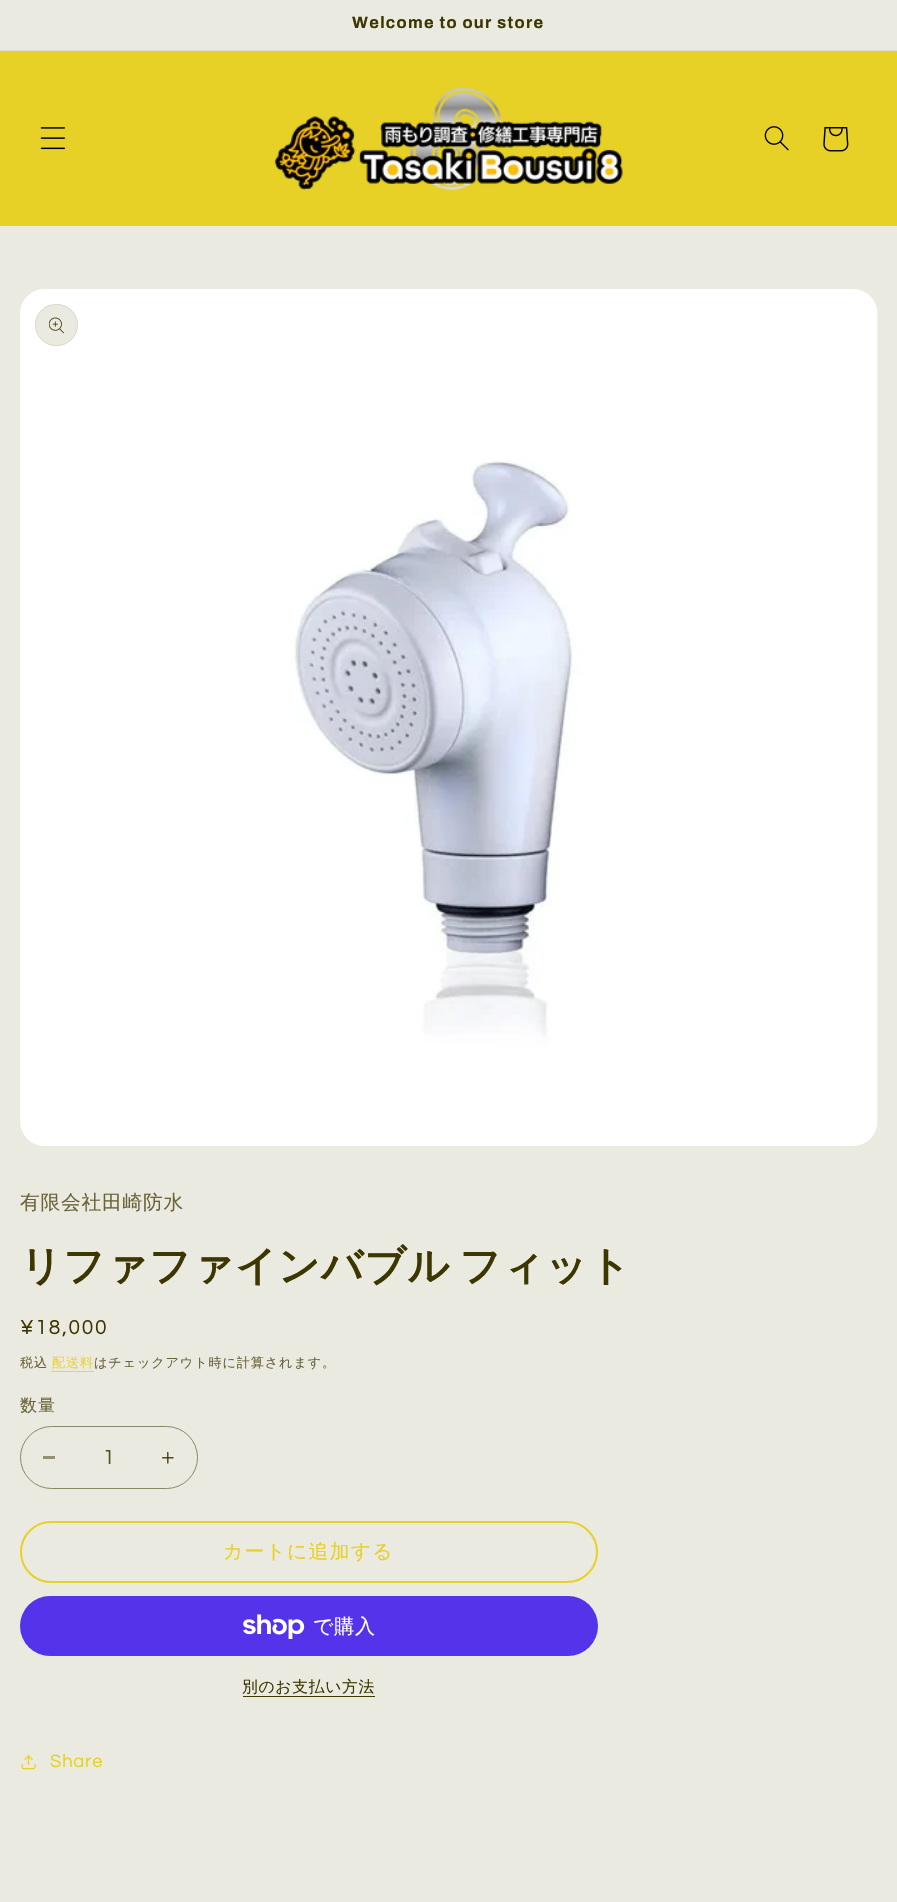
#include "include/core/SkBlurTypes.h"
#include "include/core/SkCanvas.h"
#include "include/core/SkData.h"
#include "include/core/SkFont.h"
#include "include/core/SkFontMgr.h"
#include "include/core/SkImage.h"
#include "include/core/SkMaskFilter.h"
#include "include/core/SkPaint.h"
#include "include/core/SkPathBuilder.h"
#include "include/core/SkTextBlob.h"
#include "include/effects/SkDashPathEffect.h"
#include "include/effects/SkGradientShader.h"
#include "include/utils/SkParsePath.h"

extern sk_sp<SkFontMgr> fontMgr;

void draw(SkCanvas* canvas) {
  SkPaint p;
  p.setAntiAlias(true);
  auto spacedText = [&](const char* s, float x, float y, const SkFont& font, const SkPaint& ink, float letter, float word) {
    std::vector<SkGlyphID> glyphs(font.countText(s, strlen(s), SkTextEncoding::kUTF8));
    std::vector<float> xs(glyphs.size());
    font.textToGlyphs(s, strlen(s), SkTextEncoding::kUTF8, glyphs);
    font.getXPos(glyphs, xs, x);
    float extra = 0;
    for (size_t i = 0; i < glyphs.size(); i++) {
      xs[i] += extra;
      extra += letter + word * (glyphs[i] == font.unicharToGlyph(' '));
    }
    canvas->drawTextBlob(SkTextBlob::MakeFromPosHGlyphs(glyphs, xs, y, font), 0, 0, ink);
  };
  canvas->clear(SkColorSetRGB(235, 234, 225));
  p.setColor(SkColorSetRGB(221, 220, 207));
  canvas->drawRect(SkRect::MakeLTRB(0, 50, 897, 51), p);
  p.setColor(SkColorSetRGB(231, 209, 38));
  canvas->drawRect(SkRect::MakeLTRB(0, 51, 897, 226), p);
  canvas->drawImageRect(SkImages::DeferredFromEncodedData(SkData::MakeFromFileName("images/1.png")), SkRect::MakeLTRB(40, 127, 66, 150), SkSamplingOptions());
  canvas->drawImageRect(SkImages::DeferredFromEncodedData(SkData::MakeFromFileName("images/2.png")), SkRect::MakeLTRB(274, 87, 623, 191), SkSamplingOptions());
  canvas->drawImageRect(SkImages::DeferredFromEncodedData(SkData::MakeFromFileName("images/3.png")), SkRect::MakeLTRB(764, 126, 789, 151), SkSamplingOptions());
  canvas->drawImageRect(SkImages::DeferredFromEncodedData(SkData::MakeFromFileName("images/4.png")), SkRect::MakeLTRB(823, 127, 849, 152), SkSamplingOptions());
  canvas->drawImageRect(SkImages::DeferredFromEncodedData(SkData::MakeFromFileName("images/5.png")), SkRect::MakeLTRB(20, 289, 878, 1146), SkSamplingOptions());
  p.setColor(SkColorSetRGB(235, 234, 225));
  canvas->drawRoundRect(SkRect::MakeLTRB(35, 304, 78, 346), 21, 21, p);
  p.setStyle(SkPaint::kStroke_Style);
  p.setStrokeWidth(1);
  p.setColor(SkColorSetARGB(26, 60, 54, 0));
  canvas->drawRoundRect(SkRect::MakeLTRB(35.5f, 304.5f, 77.5f, 345.5f), 20.5f, 20.5f, p);
  canvas->drawImageRect(SkImages::DeferredFromEncodedData(SkData::MakeFromFileName("images/6.png")), SkRect::MakeLTRB(49, 317, 64, 334), SkSamplingOptions());
  p.setStyle(SkPaint::kFill_Style);
  p.setColor(SkColorSetRGB(232, 213, 66));
  canvas->drawRect(SkRect::MakeLTRB(51, 1371, 94, 1372), p);
  p.setColor(SkColorSetRGB(148, 144, 113));
  canvas->drawRect(SkRect::MakeLTRB(43, 1456, 55, 1459), p);
  canvas->drawImageRect(SkImages::DeferredFromEncodedData(SkData::MakeFromFileName("images/7.png")), SkRect::MakeLTRB(162, 1451, 174, 1464), SkSamplingOptions());
  p.setStyle(SkPaint::kStroke_Style);
  p.setColor(SkColorSetRGB(139, 135, 101));
  canvas->drawRoundRect(SkRect::MakeLTRB(20.5f, 1426.5f, 197.5f, 1488.5f), 31, 31, p);
  p.setStrokeWidth(2);
  p.setColor(SkColorSetRGB(231, 209, 38));
  canvas->drawRoundRect(SkRect::MakeLTRB(21, 1522, 597, 1582), 30, 30, p);
  p.setStyle(SkPaint::kFill_Style);
  p.setColor(SkColorSetRGB(84, 51, 235));
  canvas->drawRoundRect(SkRect::MakeLTRB(20, 1596, 598, 1656), 30, 30, p);
  canvas->drawImageRect(SkImages::DeferredFromEncodedData(SkData::MakeFromFileName("images/8.png")), SkRect::MakeLTRB(243, 1614, 305, 1639), SkSamplingOptions());
  p.setColor(SkColorSetRGB(60, 54, 0));
  canvas->drawRect(SkRect::MakeLTRB(243, 1696, 375, 1697), p);
  canvas->drawImageRect(SkImages::DeferredFromEncodedData(SkData::MakeFromFileName("images/9.png")), SkRect::MakeLTRB(21, 1755, 36, 1770), SkSamplingOptions());
  SkFont font1(fontMgr->matchFamilyStyle("Archivo", SkFontStyle::Bold()), 16.5f);
  font1.setSubpixel(true);
  spacedText("Welcome to our store", 352, 28, font1, p, 1.3f, 0);
  SkFont font2(fontMgr->matchFamilyStyle("WenQuanYi Zen Hei", SkFontStyle(500, SkFontStyle::kNormal_Width, SkFontStyle::kUpright_Slant)), 19.75f);
  font2.setSubpixel(true);
  p.setColor(SkColorSetRGB(104, 99, 56));
  spacedText("有限会社田崎防水", 20, 1209, font2, p, 0.75f, 0);
  SkFont font3(fontMgr->matchFamilyStyle("WenQuanYi Zen Hei", SkFontStyle::Bold()), 41.25f);
  font3.setSubpixel(true);
  p.setColor(SkColorSetRGB(60, 54, 0));
  spacedText("リファファインバブル フィット", 20, 1280, font3, p, 0.8f, -4);
  SkFont font4(fontMgr->matchFamilyStyle("Questrial", SkFontStyle::Normal()), 21);
  font4.setSubpixel(true);
  spacedText("¥18,000", 20, 1334, font4, p, 1.75f, 0);
  SkFont font5(fontMgr->matchFamilyStyle("WenQuanYi Zen Hei", SkFontStyle(500, SkFontStyle::kNormal_Width, SkFontStyle::kUpright_Slant)), 13.1f);
  font5.setSubpixel(true);
  p.setColor(SkColorSetRGB(104, 99, 56));
  spacedText("税込", 20, 1367, font5, p, 0.9f, 0);
  p.setColor(SkColorSetRGB(232, 213, 66));
  spacedText("配送料", 52, 1367, font5, p, 0.9f, 0);
  p.setColor(SkColorSetRGB(104, 99, 56));
  spacedText("はチェックアウト時に計算されます。", 94, 1367, font5, p, 0.9f, 0);
  SkFont font6(fontMgr->matchFamilyStyle("WenQuanYi Zen Hei", SkFontStyle(500, SkFontStyle::kNormal_Width, SkFontStyle::kUpright_Slant)), 17);
  font6.setSubpixel(true);
  spacedText("数量", 20, 1411, font6, p, 1, 0);
  p.setColor(SkColorSetRGB(86, 81, 34));
  canvas->drawString("1", 103, 1464, font4, p);
  p.setColor(SkColorSetRGB(231, 209, 38));
  spacedText("カートに追加する", 223, 1558, font2, p, 1.3f, 0);
  SkFont font7(fontMgr->matchFamilyStyle("WenQuanYi Zen Hei", SkFontStyle(500, SkFontStyle::kNormal_Width, SkFontStyle::kUpright_Slant)), 20);
  font7.setSubpixel(true);
  p.setColor(SK_ColorWHITE);
  spacedText("で購入", 313, 1633, font7, p, 0.75f, 0);
  SkFont font8(fontMgr->matchFamilyStyle("WenQuanYi Zen Hei", SkFontStyle(500, SkFontStyle::kNormal_Width, SkFontStyle::kUpright_Slant)), 15.75f);
  font8.setSubpixel(true);
  p.setColor(SkColorSetRGB(60, 54, 0));
  spacedText("別のお支払い方法", 242, 1692, font8, p, 0.75f, 0);
  SkFont font9(fontMgr->matchFamilyStyle("Questrial", SkFontStyle::Normal()), 18.5f);
  font9.setSubpixel(true);
  p.setColor(SkColorSetRGB(231, 209, 38));
  spacedText("Share", 50, 1767, font9, p, 0.75f, 0);
}
